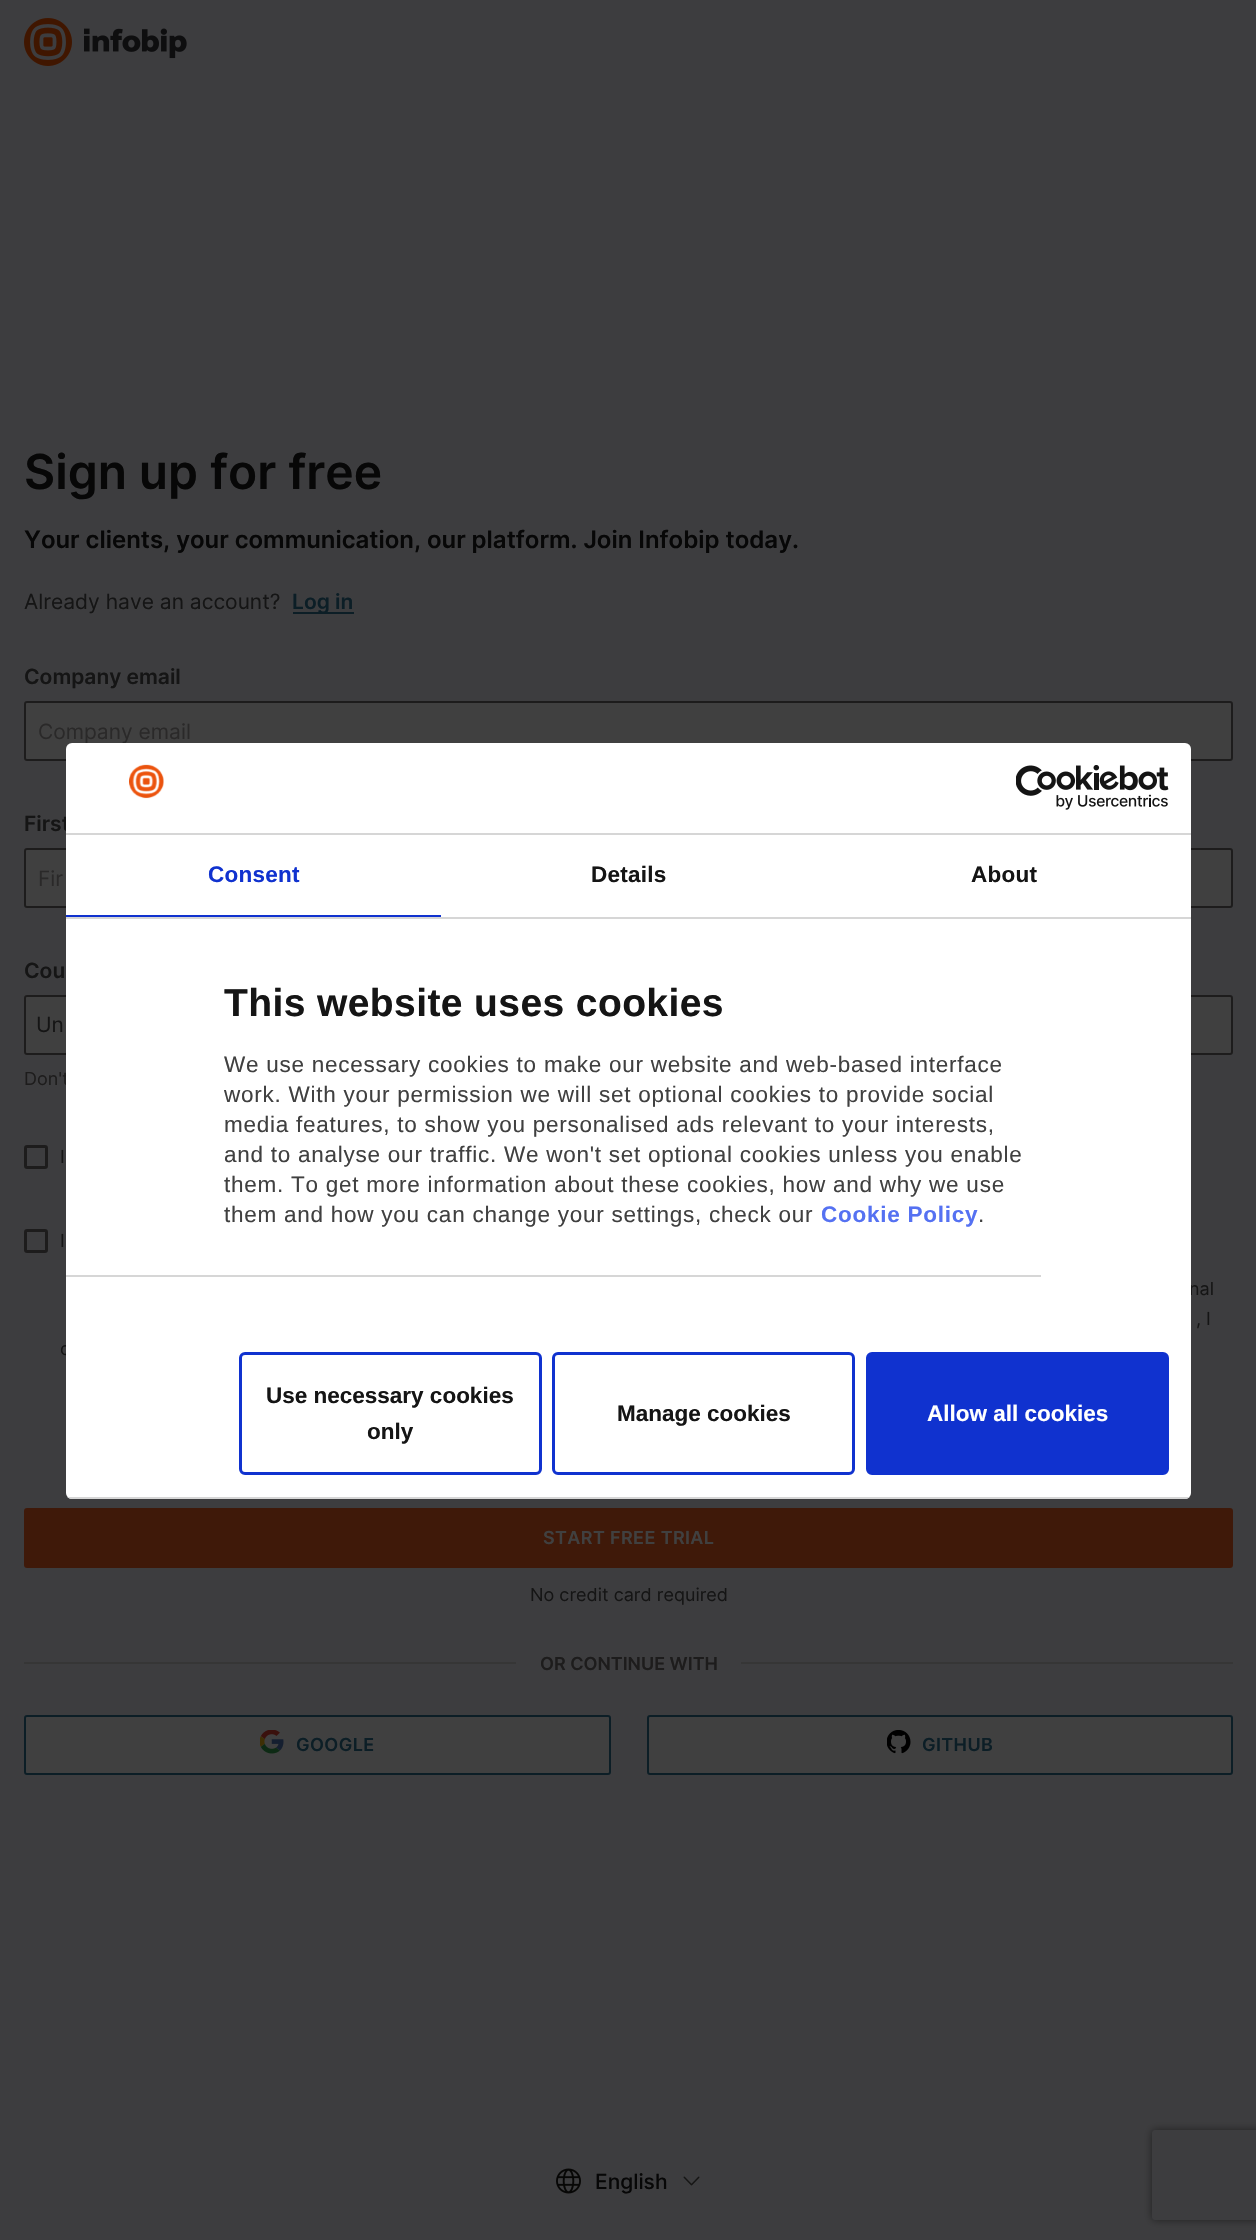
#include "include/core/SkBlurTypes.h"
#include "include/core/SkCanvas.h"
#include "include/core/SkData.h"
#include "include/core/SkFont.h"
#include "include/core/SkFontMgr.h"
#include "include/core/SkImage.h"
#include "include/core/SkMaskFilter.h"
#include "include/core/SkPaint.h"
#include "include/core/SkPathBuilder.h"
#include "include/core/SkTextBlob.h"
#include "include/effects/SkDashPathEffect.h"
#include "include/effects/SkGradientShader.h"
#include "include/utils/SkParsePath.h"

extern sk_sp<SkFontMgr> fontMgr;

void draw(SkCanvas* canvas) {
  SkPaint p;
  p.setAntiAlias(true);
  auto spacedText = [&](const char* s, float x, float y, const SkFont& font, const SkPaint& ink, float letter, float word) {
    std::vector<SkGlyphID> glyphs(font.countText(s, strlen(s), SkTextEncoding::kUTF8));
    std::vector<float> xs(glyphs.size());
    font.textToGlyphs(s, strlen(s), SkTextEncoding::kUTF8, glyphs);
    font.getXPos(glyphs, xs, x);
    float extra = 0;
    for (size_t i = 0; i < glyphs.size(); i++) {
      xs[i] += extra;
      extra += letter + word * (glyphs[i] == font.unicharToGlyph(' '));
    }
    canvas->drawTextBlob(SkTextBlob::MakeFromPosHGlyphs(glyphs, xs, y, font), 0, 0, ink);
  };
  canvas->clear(SkColorSetRGB(61, 61, 63));
  canvas->drawImageRect(SkImages::DeferredFromEncodedData(SkData::MakeFromFileName("images/1.png")), SkRect::MakeLTRB(24, 18, 187, 66), SkSamplingOptions());
  p.setColor(SkColorSetRGB(12, 30, 38));
  canvas->drawRect(SkRect::MakeLTRB(293, 612, 354, 614), p);
  p.setColor(SkColorSetRGB(64, 64, 64));
  canvas->drawRoundRect(SkRect::MakeLTRB(25, 702, 1232, 760), 2, 2, p);
  p.setStyle(SkPaint::kStroke_Style);
  p.setStrokeWidth(2);
  p.setColor(SkColorSetRGB(29, 28, 28));
  canvas->drawRoundRect(SkRect::MakeLTRB(25, 702, 1232, 760), 2, 2, p);
  p.setStyle(SkPaint::kFill_Style);
  p.setColor(SkColorSetRGB(64, 64, 64));
  canvas->drawRoundRect(SkRect::MakeLTRB(25, 849, 610, 907), 2, 2, p);
  p.setStyle(SkPaint::kStroke_Style);
  p.setColor(SkColorSetRGB(29, 28, 28));
  canvas->drawRoundRect(SkRect::MakeLTRB(25, 849, 610, 907), 2, 2, p);
  p.setStyle(SkPaint::kFill_Style);
  p.setColor(SkColorSetRGB(64, 64, 64));
  canvas->drawRoundRect(SkRect::MakeLTRB(648, 849, 1232, 907), 2, 2, p);
  p.setStyle(SkPaint::kStroke_Style);
  p.setColor(SkColorSetRGB(29, 28, 28));
  canvas->drawRoundRect(SkRect::MakeLTRB(648, 849, 1232, 907), 2, 2, p);
  p.setStyle(SkPaint::kFill_Style);
  p.setColor(SkColorSetRGB(64, 64, 64));
  canvas->drawRoundRect(SkRect::MakeLTRB(24, 995, 611, 1055), 3, 3, p);
  p.setStyle(SkPaint::kStroke_Style);
  p.setColor(SkColorSetRGB(29, 28, 28));
  canvas->drawRoundRect(SkRect::MakeLTRB(25, 996, 610, 1054), 2, 2, p);
  p.setStyle(SkPaint::kFill_Style);
  p.setColor(SkColorSetRGB(64, 64, 64));
  canvas->drawRoundRect(SkRect::MakeLTRB(648, 996, 1232, 1054), 2, 2, p);
  p.setStyle(SkPaint::kStroke_Style);
  p.setColor(SkColorSetRGB(29, 28, 28));
  canvas->drawRoundRect(SkRect::MakeLTRB(648, 996, 1232, 1054), 2, 2, p);
  p.setStrokeWidth(3);
  canvas->drawRoundRect(SkRect::MakeLTRB(25.5f, 1146.5f, 46.5f, 1167.5f), 1.5f, 1.5f, p);
  canvas->drawRoundRect(SkRect::MakeLTRB(25.5f, 1230.5f, 46.5f, 1251.5f), 1.5f, 1.5f, p);
  p.setStyle(SkPaint::kFill_Style);
  p.setColor(SkColorSetRGB(63, 25, 9));
  canvas->drawRoundRect(SkRect::MakeLTRB(24, 1508, 1233, 1568), 3, 3, p);
  canvas->save();
  canvas->clipPath(SkPathBuilder(SkPathFillType::kEvenOdd).moveTo(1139, 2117).lineTo(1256, 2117).lineTo(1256, 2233).lineTo(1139, 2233).close().moveTo(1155, 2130).lineTo(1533, 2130).cubicTo(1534.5f, 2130, 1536, 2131.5f, 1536, 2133).lineTo(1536, 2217).cubicTo(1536, 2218.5f, 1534.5f, 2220, 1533, 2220).lineTo(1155, 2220).cubicTo(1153.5f, 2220, 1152, 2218.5f, 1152, 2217).lineTo(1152, 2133).cubicTo(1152, 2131.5f, 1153.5f, 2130, 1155, 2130).close().detach(), true);
  p.setColor(SkColorSetRGB(32, 32, 32));
  p.setMaskFilter(SkMaskFilter::MakeBlur(kNormal_SkBlurStyle, 4));
  canvas->drawRoundRect(SkRect::MakeLTRB(1152, 2130, 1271, 2220), 3, 3, p);
  p.setMaskFilter(nullptr);
  canvas->restore();
  p.setColor(SkColorSetRGB(54, 54, 54));
  canvas->drawRect(SkRect::MakeLTRB(24, 1662, 516, 1664), p);
  canvas->drawRect(SkRect::MakeLTRB(741, 1662, 1233, 1664), p);
  p.setColor(SkColorSetRGB(64, 64, 64));
  canvas->drawRoundRect(SkRect::MakeLTRB(25, 1716, 610, 1774), 2, 2, p);
  p.setStyle(SkPaint::kStroke_Style);
  p.setStrokeWidth(2);
  p.setColor(SkColorSetRGB(12, 30, 38));
  canvas->drawRoundRect(SkRect::MakeLTRB(25, 1716, 610, 1774), 2, 2, p);
  canvas->drawImageRect(SkImages::DeferredFromEncodedData(SkData::MakeFromFileName("images/2.png")), SkRect::MakeLTRB(260, 1730, 284, 1754), SkSamplingOptions());
  p.setStyle(SkPaint::kFill_Style);
  p.setColor(SkColorSetRGB(64, 64, 64));
  canvas->drawRoundRect(SkRect::MakeLTRB(648, 1716, 1232, 1774), 2, 2, p);
  p.setStyle(SkPaint::kStroke_Style);
  p.setColor(SkColorSetRGB(12, 30, 38));
  canvas->drawRoundRect(SkRect::MakeLTRB(648, 1716, 1232, 1774), 2, 2, p);
  canvas->drawImageRect(SkImages::DeferredFromEncodedData(SkData::MakeFromFileName("images/3.png")), SkRect::MakeLTRB(887, 1730, 911, 1754), SkSamplingOptions());
  canvas->drawImageRect(SkImages::DeferredFromEncodedData(SkData::MakeFromFileName("images/4.png")), SkRect::MakeLTRB(556, 2168, 581, 2194), SkSamplingOptions());
  canvas->drawImageRect(SkImages::DeferredFromEncodedData(SkData::MakeFromFileName("images/5.png")), SkRect::MakeLTRB(683, 2176, 700, 2186), SkSamplingOptions());
  SkFont font1(fontMgr->matchFamilyStyle("Inter", SkFontStyle(600, SkFontStyle::kNormal_Width, SkFontStyle::kItalic_Slant)), 48);
  font1.setSubpixel(true);
  p.setStyle(SkPaint::kFill_Style);
  p.setColor(SkColorSetRGB(7, 7, 7));
  canvas->drawString("Sign up for free", 24, 489, font1, p);
  SkFont font2(fontMgr->matchFamilyStyle("Inter", SkFontStyle(600, SkFontStyle::kNormal_Width, SkFontStyle::kItalic_Slant)), 24);
  font2.setSubpixel(true);
  canvas->drawString("Your clients, your communication, our platform. Join Infobip today.", 24, 548, font2, p);
  SkFont font3(fontMgr->matchFamilyStyle("Inter", SkFontStyle::Italic()), 21);
  font3.setSubpixel(true);
  p.setColor(SkColorSetRGB(21, 21, 21));
  canvas->drawString("Already have an account?", 24, 609, font3, p);
  SkFont font4(fontMgr->matchFamilyStyle("Inter", SkFontStyle(600, SkFontStyle::kNormal_Width, SkFontStyle::kItalic_Slant)), 21);
  font4.setSubpixel(true);
  p.setColor(SkColorSetRGB(12, 30, 38));
  canvas->drawString("Log in", 292, 609, font4, p);
  p.setColor(SkColorSetRGB(21, 21, 21));
  canvas->drawString("Company email", 24, 684, font4, p);
  p.setColor(SkColorSetRGB(42, 41, 41));
  canvas->drawString("Company email", 38, 739, font3, p);
  p.setColor(SkColorSetRGB(21, 21, 21));
  canvas->drawString("First", 24, 831, font4, p);
  p.setColor(SkColorSetRGB(42, 41, 41));
  canvas->drawString("Fir", 38, 886, font3, p);
  p.setColor(SkColorSetRGB(21, 21, 21));
  canvas->drawString("Cou", 24, 978, font4, p);
  canvas->drawString("Un", 36, 1032, font3, p);
  SkFont font5(fontMgr->matchFamilyStyle("Inter", SkFontStyle::Italic()), 18);
  font5.setSubpixel(true);
  p.setColor(SkColorSetRGB(29, 28, 28));
  canvas->drawString("Don't", 24, 1085, font5, p);
  p.setColor(SkColorSetRGB(21, 21, 21));
  canvas->drawString("I", 60, 1163, font5, p);
  canvas->drawString("I", 60, 1247, font5, p);
  canvas->drawString("nal", 1189, 1295, font5, p);
  canvas->drawString(", I", 1196, 1325, font5, p);
  canvas->drawString("c", 60, 1355, font5, p);
  SkFont font6(fontMgr->matchFamilyStyle("Inter", SkFontStyle(600, SkFontStyle::kNormal_Width, SkFontStyle::kItalic_Slant)), 18);
  font6.setSubpixel(true);
  p.setColor(SkColorSetRGB(64, 64, 64));
  spacedText("START FREE TRIAL", 543, 1544, font6, p, 0.4f, 0);
  p.setColor(SkColorSetRGB(21, 21, 21));
  canvas->drawString("No credit card required", 530, 1601, font5, p);
  p.setColor(SkColorSetRGB(29, 28, 28));
  canvas->drawString("OR CONTINUE WITH", 540, 1670, font6, p);
  p.setColor(SkColorSetRGB(12, 30, 38));
  spacedText("GOOGLE", 296, 1751, font6, p, 0.4f, 0);
  spacedText("GITHUB", 922, 1751, font6, p, 0.4f, 0);
  SkFont font7(fontMgr->matchFamilyStyle("Inter", SkFontStyle(500, SkFontStyle::kNormal_Width, SkFontStyle::kItalic_Slant)), 21);
  font7.setSubpixel(true);
  p.setColor(SkColorSetRGB(7, 7, 7));
  canvas->drawString("English", 595, 2189, font7, p);
  p.setColor(SK_ColorWHITE);
  canvas->drawRoundRect(SkRect::MakeLTRB(66, 743, 1191, 1499), 6, 6, p);
  p.setColor(SkColorSetRGB(214, 214, 214));
  canvas->drawRect(SkRect::MakeLTRB(66, 833, 1191, 835), p);
  canvas->drawImageRect(SkImages::DeferredFromEncodedData(SkData::MakeFromFileName("images/6.png")), SkRect::MakeLTRB(129, 764, 164, 799), SkSamplingOptions());
  canvas->drawImageRect(SkImages::DeferredFromEncodedData(SkData::MakeFromFileName("images/7.png")), SkRect::MakeLTRB(1016, 765, 1169, 810), SkSamplingOptions());
  canvas->drawRect(SkRect::MakeLTRB(66, 917, 1191, 919), p);
  p.setColor(SkColorSetRGB(16, 50, 207));
  canvas->drawRect(SkRect::MakeLTRB(66, 915, 441, 917), p);
  SkFont font8(fontMgr->matchFamilyStyle("Liberation Sans", SkFontStyle::Bold()), 22.5f);
  font8.setSubpixel(true);
  spacedText("Consent", 208, 882, font8, p, 0.25f, 0);
  p.setColor(SkColorSetRGB(21, 21, 21));
  spacedText("Details", 591, 882, font8, p, 0.25f, 0);
  spacedText("About", 971, 882, font8, p, 0.25f, 0);
  p.setColor(SkColorSetRGB(214, 214, 214));
  canvas->drawRect(SkRect::MakeLTRB(66, 1275, 1041, 1277), p);
  SkFont font9(fontMgr->matchFamilyStyle("Liberation Sans", SkFontStyle::Bold()), 39);
  font9.setSubpixel(true);
  p.setColor(SkColorSetRGB(21, 21, 21));
  spacedText("This website uses cookies", 224, 1016, font9, p, 0.4f, 0);
  SkFont font10(fontMgr->matchFamilyStyle("Liberation Sans", SkFontStyle::Normal()), 22.5f);
  font10.setSubpixel(true);
  p.setColor(SkColorSetRGB(64, 64, 64));
  spacedText("We use necessary cookies to make our website and web-based interface", 224, 1072, font10, p, 0.75f, 0);
  spacedText("work. With your permission we will set optional cookies to provide social", 224, 1102, font10, p, 0.75f, 0);
  spacedText("media features, to show you personalised ads relevant to your interests,", 224, 1132, font10, p, 0.75f, 0);
  spacedText("and to analyse our traffic. We won't set optional cookies unless you enable", 224, 1162, font10, p, 0.75f, 0);
  spacedText("them. To get more information about these cookies, how and why we use", 224, 1192, font10, p, 0.75f, 0);
  spacedText("them and how you can change your settings, check our", 224, 1222, font10, p, 0.75f, 0);
  p.setColor(SkColorSetRGB(85, 113, 242));
  spacedText("Cookie Policy", 821, 1222, font8, p, 0.75f, 0);
  p.setColor(SkColorSetRGB(64, 64, 64));
  spacedText(".", 978, 1222, font10, p, 0.75f, 0);
  canvas->save();
  canvas->clipPath(SkPathBuilder().moveTo(72, 743).lineTo(1185, 743).cubicTo(1188.5f, 743, 1191, 745.5f, 1191, 749).lineTo(1191, 1493).cubicTo(1191, 1496.5f, 1188.5f, 1499, 1185, 1499).lineTo(72, 1499).cubicTo(68.5f, 1499, 66, 1496.5f, 66, 1493).lineTo(66, 749).cubicTo(66, 745.5f, 68.5f, 743, 72, 743).close().detach(), true);
  p.setColor(SkColorSetRGB(214, 214, 214));
  canvas->drawRect(SkRect::MakeLTRB(66, 1497, 1191, 1499), p);
  canvas->restore();
  p.setStyle(SkPaint::kStroke_Style);
  p.setStrokeWidth(3);
  p.setColor(SkColorSetRGB(16, 50, 207));
  canvas->drawRoundRect(SkRect::MakeLTRB(240.5f, 1353.5f, 540.5f, 1473.5f), 4.5f, 4.5f, p);
  p.setStyle(SkPaint::kFill_Style);
  p.setColor(SkColorSetRGB(21, 21, 21));
  canvas->drawString("Use necessary cookies", 266, 1403, font8, p);
  canvas->drawString("only", 367, 1439, font8, p);
  p.setStyle(SkPaint::kStroke_Style);
  p.setColor(SkColorSetRGB(16, 50, 207));
  canvas->drawRoundRect(SkRect::MakeLTRB(553.5f, 1353.5f, 853.5f, 1473.5f), 4.5f, 4.5f, p);
  p.setStyle(SkPaint::kFill_Style);
  p.setColor(SkColorSetRGB(21, 21, 21));
  canvas->drawString("Manage cookies", 617, 1421, font8, p);
  p.setColor(SkColorSetRGB(16, 50, 207));
  canvas->drawRoundRect(SkRect::MakeLTRB(867.5f, 1353.5f, 1167.5f, 1473.5f), 4.5f, 4.5f, p);
  p.setStyle(SkPaint::kStroke_Style);
  canvas->drawRoundRect(SkRect::MakeLTRB(867.5f, 1353.5f, 1167.5f, 1473.5f), 4.5f, 4.5f, p);
  p.setStyle(SkPaint::kFill_Style);
  p.setColor(SK_ColorWHITE);
  canvas->drawString("Allow all cookies", 927, 1421, font8, p);
}
